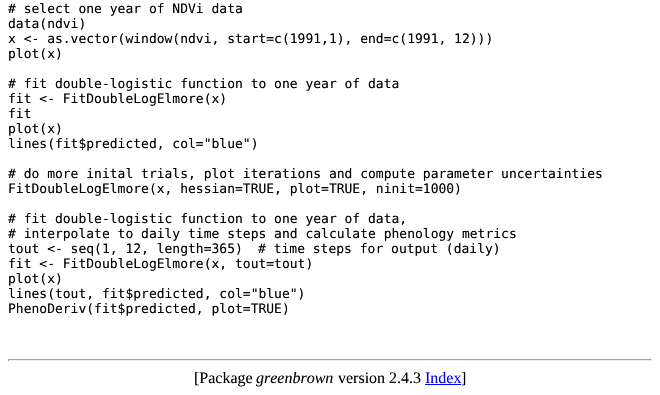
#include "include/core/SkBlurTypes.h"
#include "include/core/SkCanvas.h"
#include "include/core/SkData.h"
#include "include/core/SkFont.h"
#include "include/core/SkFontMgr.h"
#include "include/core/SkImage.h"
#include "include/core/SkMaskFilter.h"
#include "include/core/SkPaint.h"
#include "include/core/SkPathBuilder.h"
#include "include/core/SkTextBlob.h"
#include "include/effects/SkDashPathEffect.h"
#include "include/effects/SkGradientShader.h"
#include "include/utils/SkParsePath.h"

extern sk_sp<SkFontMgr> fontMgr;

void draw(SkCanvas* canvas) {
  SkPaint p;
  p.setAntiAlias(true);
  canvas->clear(SK_ColorWHITE);
  p.setColor(SkColorSetRGB(159, 159, 159));
  canvas->drawRect(SkRect::MakeLTRB(8, 359, 652, 360), p);
  p.setColor(SkColorSetRGB(238, 238, 238));
  canvas->drawRect(SkRect::MakeLTRB(651, 359, 652, 361), p);
  canvas->drawRect(SkRect::MakeLTRB(8, 360, 652, 361), p);
  p.setColor(SkColorSetRGB(159, 159, 159));
  canvas->drawRect(SkRect::MakeLTRB(8, 359, 9, 361), p);
  p.setColor(SkColorSetRGB(0, 0, 255));
  canvas->drawRect(SkRect::MakeLTRB(425, 384, 461, 385), p);
  SkFont font1(fontMgr->matchFamilyStyle("DejaVu Sans Mono", SkFontStyle::Normal()), 13);
  font1.setSubpixel(true);
  p.setColor(SK_ColorBLACK);
  canvas->drawString("# select one year of NDVi data", 8, 13, font1, p);
  canvas->drawString("data(ndvi)", 8, 28, font1, p);
  canvas->drawString("x <- as.vector(window(ndvi, start=c(1991,1), end=c(1991, 12)))", 8, 43, font1, p);
  canvas->drawString("plot(x)", 8, 58, font1, p);
  canvas->drawString("# fit double-logistic function to one year of data", 8, 88, font1, p);
  canvas->drawString("fit <- FitDoubleLogElmore(x)", 8, 103, font1, p);
  canvas->drawString("fit", 8, 118, font1, p);
  canvas->drawString("plot(x)", 8, 133, font1, p);
  canvas->drawString("lines(fit$predicted, col=\"blue\")", 8, 148, font1, p);
  canvas->drawString("# do more inital trials, plot iterations and compute parameter uncertainties", 8, 178, font1, p);
  canvas->drawString("FitDoubleLogElmore(x, hessian=TRUE, plot=TRUE, ninit=1000)", 8, 193, font1, p);
  canvas->drawString("# fit double-logistic function to one year of data,", 8, 223, font1, p);
  canvas->drawString("# interpolate to daily time steps and calculate phenology metrics", 8, 238, font1, p);
  canvas->drawString("tout <- seq(1, 12, length=365)", 8, 253, font1, p);
  canvas->drawString("# time steps for output (daily)", 258, 253, font1, p);
  canvas->drawString("fit <- FitDoubleLogElmore(x, tout=tout)", 8, 268, font1, p);
  canvas->drawString("plot(x)", 8, 283, font1, p);
  canvas->drawString("lines(tout, fit$predicted, col=\"blue\")", 8, 298, font1, p);
  canvas->drawString("PhenoDeriv(fit$predicted, plot=TRUE)", 8, 313, font1, p);
  SkFont font2(fontMgr->matchFamilyStyle("Liberation Serif", SkFontStyle::Normal()), 16);
  font2.setSubpixel(true);
  canvas->drawString("[Package", 194, 383, font2, p);
  SkFont font3(fontMgr->matchFamilyStyle("Liberation Serif", SkFontStyle::Italic()), 16);
  font3.setSubpixel(true);
  canvas->drawString("greenbrown", 256, 383, font3, p);
  canvas->drawString("version 2.4.3", 338, 383, font2, p);
  p.setColor(SkColorSetRGB(0, 0, 255));
  canvas->drawString("Index", 425, 383, font2, p);
  p.setColor(SK_ColorBLACK);
  canvas->drawString("]", 461, 383, font2, p);
}
